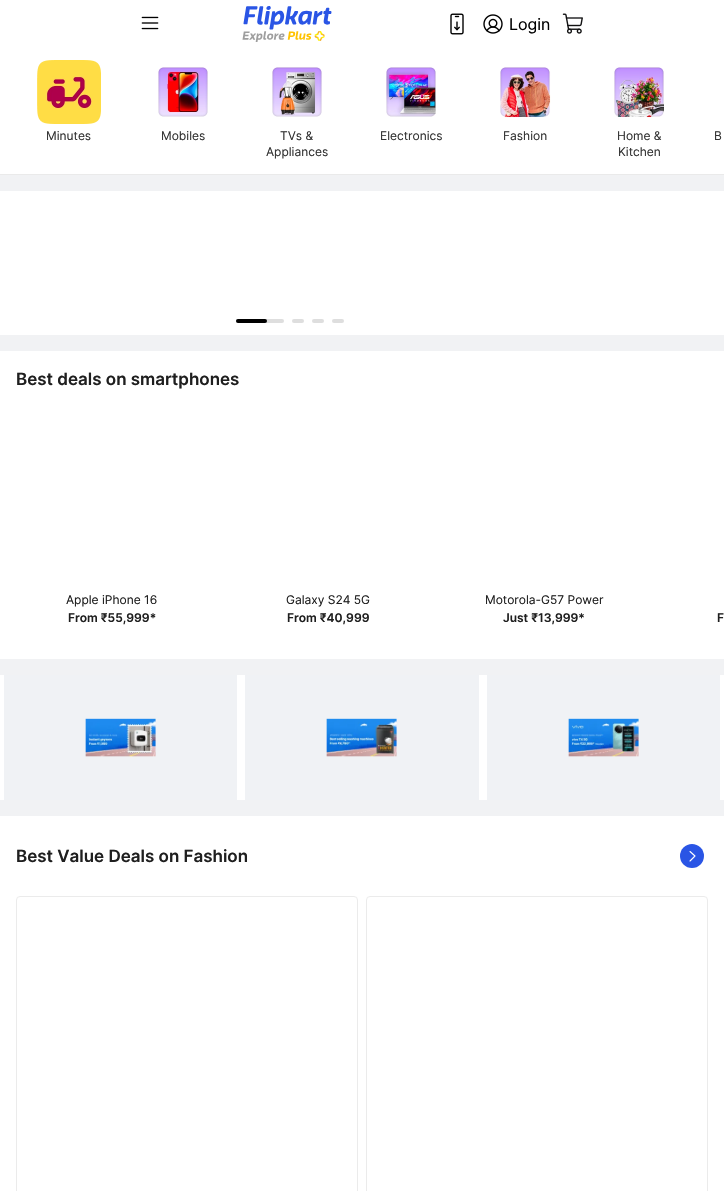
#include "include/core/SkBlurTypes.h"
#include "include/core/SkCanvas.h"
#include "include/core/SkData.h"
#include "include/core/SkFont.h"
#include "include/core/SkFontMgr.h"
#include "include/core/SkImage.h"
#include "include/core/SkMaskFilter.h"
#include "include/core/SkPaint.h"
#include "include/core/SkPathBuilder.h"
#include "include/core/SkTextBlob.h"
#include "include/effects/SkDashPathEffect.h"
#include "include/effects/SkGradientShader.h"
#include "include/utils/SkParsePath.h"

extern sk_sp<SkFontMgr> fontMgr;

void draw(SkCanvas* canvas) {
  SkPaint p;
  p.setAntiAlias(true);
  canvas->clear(SkColorSetRGB(241, 242, 244));
  p.setColor(SK_ColorWHITE);
  canvas->drawRect(SkRect::MakeLTRB(0, 0, 724, 174), p);
  canvas->drawImageRect(SkImages::DeferredFromEncodedData(SkData::MakeFromFileName("images/1.png")), SkRect::MakeLTRB(141, 16, 159, 30), SkSamplingOptions());
  canvas->drawImageRect(SkImages::DeferredFromEncodedData(SkData::MakeFromFileName("images/2.png")), SkRect::MakeLTRB(242, 6, 332, 42), SkSamplingOptions());
  canvas->drawImageRect(SkImages::DeferredFromEncodedData(SkData::MakeFromFileName("images/3.png")), SkRect::MakeLTRB(450, 13, 464, 35), SkSamplingOptions());
  canvas->drawImageRect(SkImages::DeferredFromEncodedData(SkData::MakeFromFileName("images/4.png")), SkRect::MakeLTRB(483, 14, 503, 34), SkSamplingOptions());
  canvas->drawImageRect(SkImages::DeferredFromEncodedData(SkData::MakeFromFileName("images/5.png")), SkRect::MakeLTRB(562, 13, 583, 34), SkSamplingOptions());
  canvas->drawImageRect(SkImages::DeferredFromEncodedData(SkData::MakeFromFileName("images/6.png")), SkRect::MakeLTRB(37, 60, 101, 124), SkSamplingOptions());
  canvas->drawImageRect(SkImages::DeferredFromEncodedData(SkData::MakeFromFileName("images/7.png")), SkRect::MakeLTRB(158, 67, 208, 117), SkSamplingOptions());
  canvas->drawImageRect(SkImages::DeferredFromEncodedData(SkData::MakeFromFileName("images/8.png")), SkRect::MakeLTRB(272, 67, 322, 117), SkSamplingOptions());
  canvas->drawImageRect(SkImages::DeferredFromEncodedData(SkData::MakeFromFileName("images/9.png")), SkRect::MakeLTRB(386, 67, 436, 117), SkSamplingOptions());
  canvas->drawImageRect(SkImages::DeferredFromEncodedData(SkData::MakeFromFileName("images/10.png")), SkRect::MakeLTRB(500, 67, 551, 118), SkSamplingOptions());
  canvas->drawImageRect(SkImages::DeferredFromEncodedData(SkData::MakeFromFileName("images/11.png")), SkRect::MakeLTRB(614, 67, 664, 118), SkSamplingOptions());
  p.setColor(SkColorSetRGB(234, 234, 234));
  canvas->drawRect(SkRect::MakeLTRB(0, 174, 724, 175), p);
  p.setColor(SK_ColorWHITE);
  canvas->drawRect(SkRect::MakeLTRB(0, 191, 724, 335), p);
  p.setColor(SkColorSetRGB(222, 222, 222));
  canvas->drawRoundRect(SkRect::MakeLTRB(236, 319, 284, 323), 2, 2, p);
  p.setColor(SK_ColorBLACK);
  canvas->drawRoundRect(SkRect::MakeLTRB(236, 319, 267, 323), 2, 2, p);
  p.setColor(SkColorSetRGB(222, 222, 222));
  canvas->drawRoundRect(SkRect::MakeLTRB(292, 319, 304, 323), 2, 2, p);
  canvas->drawRoundRect(SkRect::MakeLTRB(312, 319, 324, 323), 2, 2, p);
  canvas->drawRoundRect(SkRect::MakeLTRB(332, 319, 344, 323), 2, 2, p);
  p.setColor(SK_ColorWHITE);
  canvas->drawRect(SkRect::MakeLTRB(0, 351, 724, 659), p);
  canvas->drawRect(SkRect::MakeLTRB(0, 675, 724, 800), p);
  p.setColor(SkColorSetRGB(240, 242, 245));
  canvas->drawRect(SkRect::MakeLTRB(4, 675, 237, 800), p);
  canvas->drawImageRect(SkImages::DeferredFromEncodedData(SkData::MakeFromFileName("images/12.png")), SkRect::MakeLTRB(85, 718, 156, 757), SkSamplingOptions());
  canvas->drawRect(SkRect::MakeLTRB(245, 675, 479, 800), p);
  canvas->drawImageRect(SkImages::DeferredFromEncodedData(SkData::MakeFromFileName("images/13.png")), SkRect::MakeLTRB(326, 718, 397, 757), SkSamplingOptions());
  canvas->drawRect(SkRect::MakeLTRB(487, 675, 720, 800), p);
  canvas->drawImageRect(SkImages::DeferredFromEncodedData(SkData::MakeFromFileName("images/14.png")), SkRect::MakeLTRB(568, 718, 639, 757), SkSamplingOptions());
  p.setColor(SK_ColorWHITE);
  canvas->drawRect(SkRect::MakeLTRB(0, 816, 724, 1191), p);
  p.setColor(SkColorSetRGB(42, 85, 229));
  canvas->drawCircle(692, 856, 12, p);
  p.setStyle(SkPaint::kStroke_Style);
  p.setStrokeWidth(1.1f);
  p.setStrokeCap(SkPaint::kRound_Cap);
  p.setStrokeJoin(SkPaint::kRound_Join);
  p.setColor(SK_ColorWHITE);
  canvas->drawPath(SkPathBuilder().moveTo(690, 851.5f).lineTo(695, 856).lineTo(690, 861).detach(), p);
  p.setStrokeWidth(1);
  p.setStrokeCap(SkPaint::kButt_Cap);
  p.setStrokeJoin(SkPaint::kMiter_Join);
  p.setColor(SkColorSetRGB(235, 235, 235));
  canvas->drawRoundRect(SkRect::MakeLTRB(16.5f, 896.5f, 357.5f, 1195.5f), 3.5f, 3.5f, p);
  canvas->drawRoundRect(SkRect::MakeLTRB(366.5f, 896.5f, 707.5f, 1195.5f), 3.5f, 3.5f, p);
  SkFont font1(fontMgr->matchFamilyStyle("Inter", SkFontStyle::Normal()), 16);
  font1.setSubpixel(true);
  p.setStyle(SkPaint::kFill_Style);
  p.setColor(SK_ColorBLACK);
  canvas->drawString("Login", 509, 30, font1, p);
  SkFont font2(fontMgr->matchFamilyStyle("Inter", SkFontStyle::Normal()), 12);
  font2.setSubpixel(true);
  p.setColor(SkColorSetRGB(51, 51, 51));
  canvas->drawString("Minutes", 46, 140, font2, p);
  canvas->drawString("Mobiles", 161, 140, font2, p);
  canvas->drawString("TVs &", 280, 140, font2, p);
  canvas->drawString("Appliances", 266, 156, font2, p);
  canvas->drawString("Electronics", 380, 140, font2, p);
  canvas->drawString("Fashion", 503, 140, font2, p);
  canvas->drawString("Home &", 617, 140, font2, p);
  canvas->drawString("Kitchen", 618, 156, font2, p);
  canvas->drawString("B", 714, 140, font2, p);
  SkFont font3(fontMgr->matchFamilyStyle("Inter", SkFontStyle(600, SkFontStyle::kNormal_Width, SkFontStyle::kUpright_Slant)), 17);
  font3.setSubpixel(true);
  p.setColor(SkColorSetRGB(31, 31, 31));
  canvas->drawString("Best deals on smartphones", 16, 385, font3, p);
  canvas->drawString("Apple iPhone 16", 66, 604, font2, p);
  SkFont font4(fontMgr->matchFamilyStyle("Inter", SkFontStyle(600, SkFontStyle::kNormal_Width, SkFontStyle::kUpright_Slant)), 12);
  font4.setSubpixel(true);
  canvas->drawString("From ₹55,999*", 68, 622, font4, p);
  canvas->drawString("Galaxy S24 5G", 286, 604, font2, p);
  canvas->drawString("From ₹40,999", 287, 622, font4, p);
  canvas->drawString("Motorola-G57 Power", 485, 604, font2, p);
  canvas->drawString("Just ₹13,999*", 503, 622, font4, p);
  canvas->drawString("F", 717, 622, font4, p);
  canvas->drawString("Best Value Deals on Fashion", 16, 862, font3, p);
}
